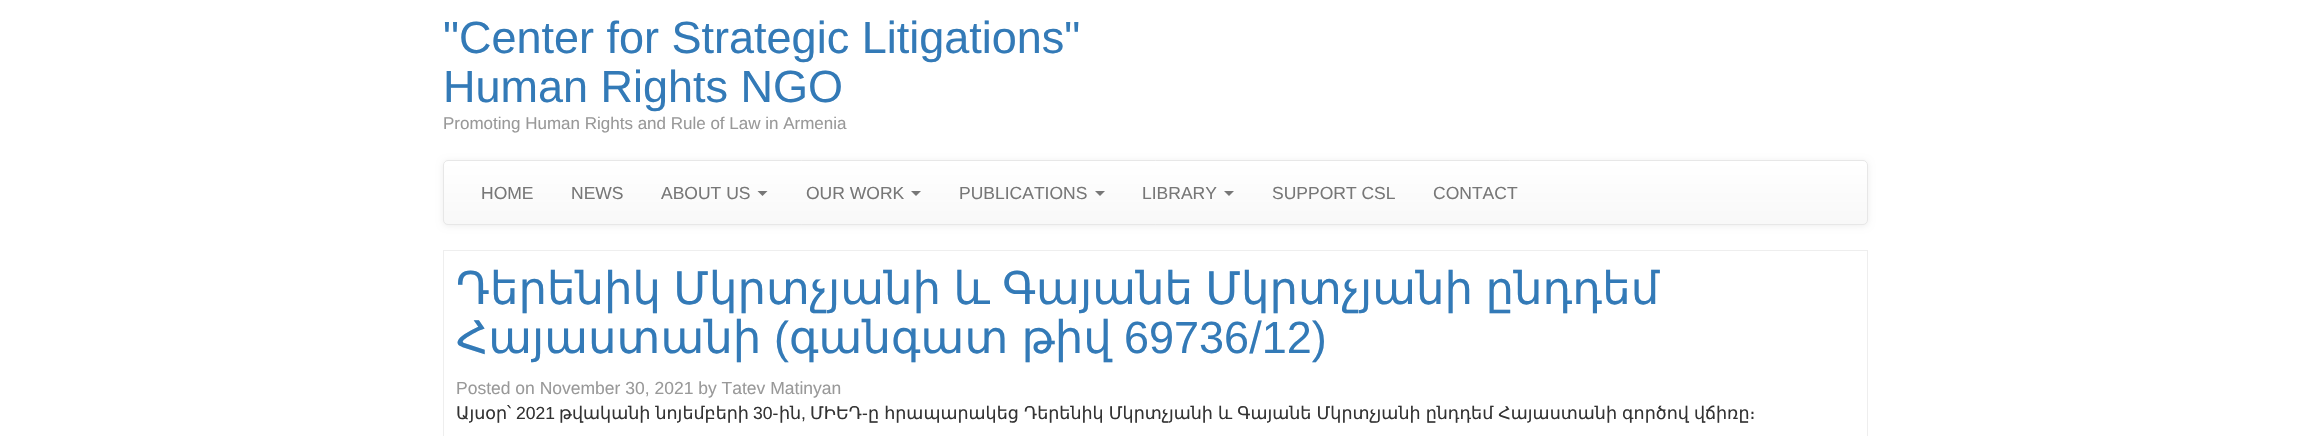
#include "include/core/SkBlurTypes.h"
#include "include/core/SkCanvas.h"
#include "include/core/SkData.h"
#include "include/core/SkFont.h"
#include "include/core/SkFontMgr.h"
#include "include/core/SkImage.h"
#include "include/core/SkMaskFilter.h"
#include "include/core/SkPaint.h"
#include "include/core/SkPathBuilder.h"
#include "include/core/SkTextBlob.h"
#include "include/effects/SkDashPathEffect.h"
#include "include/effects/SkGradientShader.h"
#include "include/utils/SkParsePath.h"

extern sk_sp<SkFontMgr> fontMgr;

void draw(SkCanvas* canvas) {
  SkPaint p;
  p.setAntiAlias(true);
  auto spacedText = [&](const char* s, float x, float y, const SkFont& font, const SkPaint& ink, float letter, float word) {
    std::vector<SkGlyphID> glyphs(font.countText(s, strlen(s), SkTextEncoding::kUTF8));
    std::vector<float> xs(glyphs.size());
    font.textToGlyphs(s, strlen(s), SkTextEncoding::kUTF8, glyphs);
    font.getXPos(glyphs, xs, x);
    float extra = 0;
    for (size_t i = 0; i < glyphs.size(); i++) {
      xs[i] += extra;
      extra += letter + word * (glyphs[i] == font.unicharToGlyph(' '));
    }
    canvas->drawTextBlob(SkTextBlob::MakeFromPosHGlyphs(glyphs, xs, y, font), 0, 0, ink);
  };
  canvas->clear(SK_ColorWHITE);
  p.setColor(SkColorSetARGB(18, 0, 0, 0));
  p.setMaskFilter(SkMaskFilter::MakeBlur(kNormal_SkBlurStyle, 3));
  canvas->drawRoundRect(SkRect::MakeLTRB(443, 161, 1868, 226), 5, 5, p);
  p.setMaskFilter(nullptr);
  canvas->save();
  canvas->clipPath(SkPathBuilder().moveTo(448, 160).lineTo(1863, 160).cubicTo(1866, 160, 1868, 162, 1868, 165).lineTo(1868, 220).cubicTo(1868, 223, 1866, 225, 1863, 225).lineTo(448, 225).cubicTo(445, 225, 443, 223, 443, 220).lineTo(443, 165).cubicTo(443, 162, 445, 160, 448, 160).close().detach(), true);
  {
    const SkColor colors[] = {SK_ColorWHITE, SkColorSetRGB(248, 248, 248)};
    const float stops[] = {0, 1};
    const SkPoint ends[] = {{1155, 161}, {1155, 224}};
    p.setShader(SkGradientShader::MakeLinear(ends, colors, stops, 2, SkTileMode::kClamp));
    p.setAlpha(255);
  }
  canvas->drawRect(SkRect::MakeLTRB(443, 161, 1868, 224), p);
  canvas->restore();
  p.setStyle(SkPaint::kStroke_Style);
  p.setStrokeWidth(1);
  p.setShader(nullptr);
  p.setColor(SkColorSetRGB(231, 231, 231));
  canvas->drawRoundRect(SkRect::MakeLTRB(443.5f, 160.5f, 1867.5f, 224.5f), 4.5f, 4.5f, p);
  p.setStyle(SkPaint::kFill_Style);
  p.setColor(SkColorSetRGB(119, 119, 119));
  canvas->drawPath(SkPathBuilder().moveTo(757.5f, 191).lineTo(767.5f, 191).lineTo(762.5f, 196).close().detach(), p);
  canvas->drawPath(SkPathBuilder().moveTo(911, 191).lineTo(921, 191).lineTo(916, 196).close().detach(), p);
  canvas->drawPath(SkPathBuilder().moveTo(1095, 191).lineTo(1105, 191).lineTo(1100, 196).close().detach(), p);
  canvas->drawPath(SkPathBuilder().moveTo(1224, 191).lineTo(1234, 191).lineTo(1229, 196).close().detach(), p);
  p.setStyle(SkPaint::kStroke_Style);
  p.setColor(SkColorSetRGB(238, 238, 238));
  canvas->drawRect(SkRect::MakeLTRB(443.5f, 250.5f, 1867.5f, 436.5f), p);
  SkFont font1(fontMgr->matchFamilyStyle("Liberation Sans", SkFontStyle::Normal()), 45);
  font1.setSubpixel(true);
  p.setStyle(SkPaint::kFill_Style);
  p.setColor(SkColorSetRGB(51, 122, 183));
  canvas->drawString("\"Center for Strategic Litigations\"", 443, 53, font1, p);
  canvas->drawString("Human Rights NGO", 443, 102, font1, p);
  SkFont font2(fontMgr->matchFamilyStyle("Liberation Sans", SkFontStyle::Normal()), 17);
  font2.setSubpixel(true);
  p.setColor(SkColorSetRGB(153, 153, 153));
  canvas->drawString("Promoting Human Rights and Rule of Law in Armenia", 443, 129, font2, p);
  SkFont font3(fontMgr->matchFamilyStyle("Liberation Sans", SkFontStyle::Normal()), 17.5f);
  font3.setSubpixel(true);
  p.setColor(SkColorSetRGB(119, 119, 119));
  canvas->drawString("HOME", 481, 199, font3, p);
  canvas->drawString("NEWS", 571, 199, font3, p);
  canvas->drawString("ABOUT US", 661, 199, font3, p);
  canvas->drawString("OUR WORK", 806, 199, font3, p);
  canvas->drawString("PUBLICATIONS", 959, 199, font3, p);
  canvas->drawString("LIBRARY", 1142, 199, font3, p);
  canvas->drawString("SUPPORT CSL", 1272, 199, font3, p);
  canvas->drawString("CONTACT", 1433, 199, font3, p);
  SkFont font4(fontMgr->matchFamilyStyle("DejaVu Sans", SkFontStyle::Normal()), 45);
  font4.setSubpixel(true);
  p.setColor(SkColorSetRGB(51, 122, 183));
  spacedText("Դերենիկ Մկրտչյանի և Գայանե Մկրտչյանի ընդդեմ", 456, 304, font4, p, 0, -2);
  canvas->drawString("Հայաստանի", 456, 353, font4, p);
  canvas->drawString("(", 774, 353, font1, p);
  spacedText("գանգատ թիվ", 789, 353, font4, p, 0, -1);
  canvas->drawString("69736/12)", 1124, 353, font1, p);
  p.setColor(SkColorSetRGB(153, 153, 153));
  canvas->drawString("Posted on November 30, 2021 by Tatev Matinyan", 456, 394, font3, p);
  SkFont font5(fontMgr->matchFamilyStyle("DejaVu Sans", SkFontStyle::Normal()), 17.5f);
  font5.setSubpixel(true);
  p.setColor(SkColorSetRGB(51, 51, 51));
  canvas->drawString("Այսօր՝", 456, 419, font5, p);
  canvas->drawString("2021", 516, 419, font3, p);
  spacedText("թվականի նոյեմբերի", 559, 419, font5, p, 0, -0.5f);
  canvas->drawString("30-", 753, 419, font3, p);
  canvas->drawString("ին", 779, 419, font5, p);
  canvas->drawString("ՄԻԵԴ", 810, 419, font5, p);
  canvas->drawString("-", 862, 419, font3, p);
  spacedText("ը հրապարակեց Դերենիկ Մկրտչյանի և Գայանե Մկրտչյանի ընդդեմ Հայաստանի գործով վճիռը։", 868, 419, font5, p, 0, -0.5f);
  canvas->drawString(",", 801, 419, font3, p);
}
